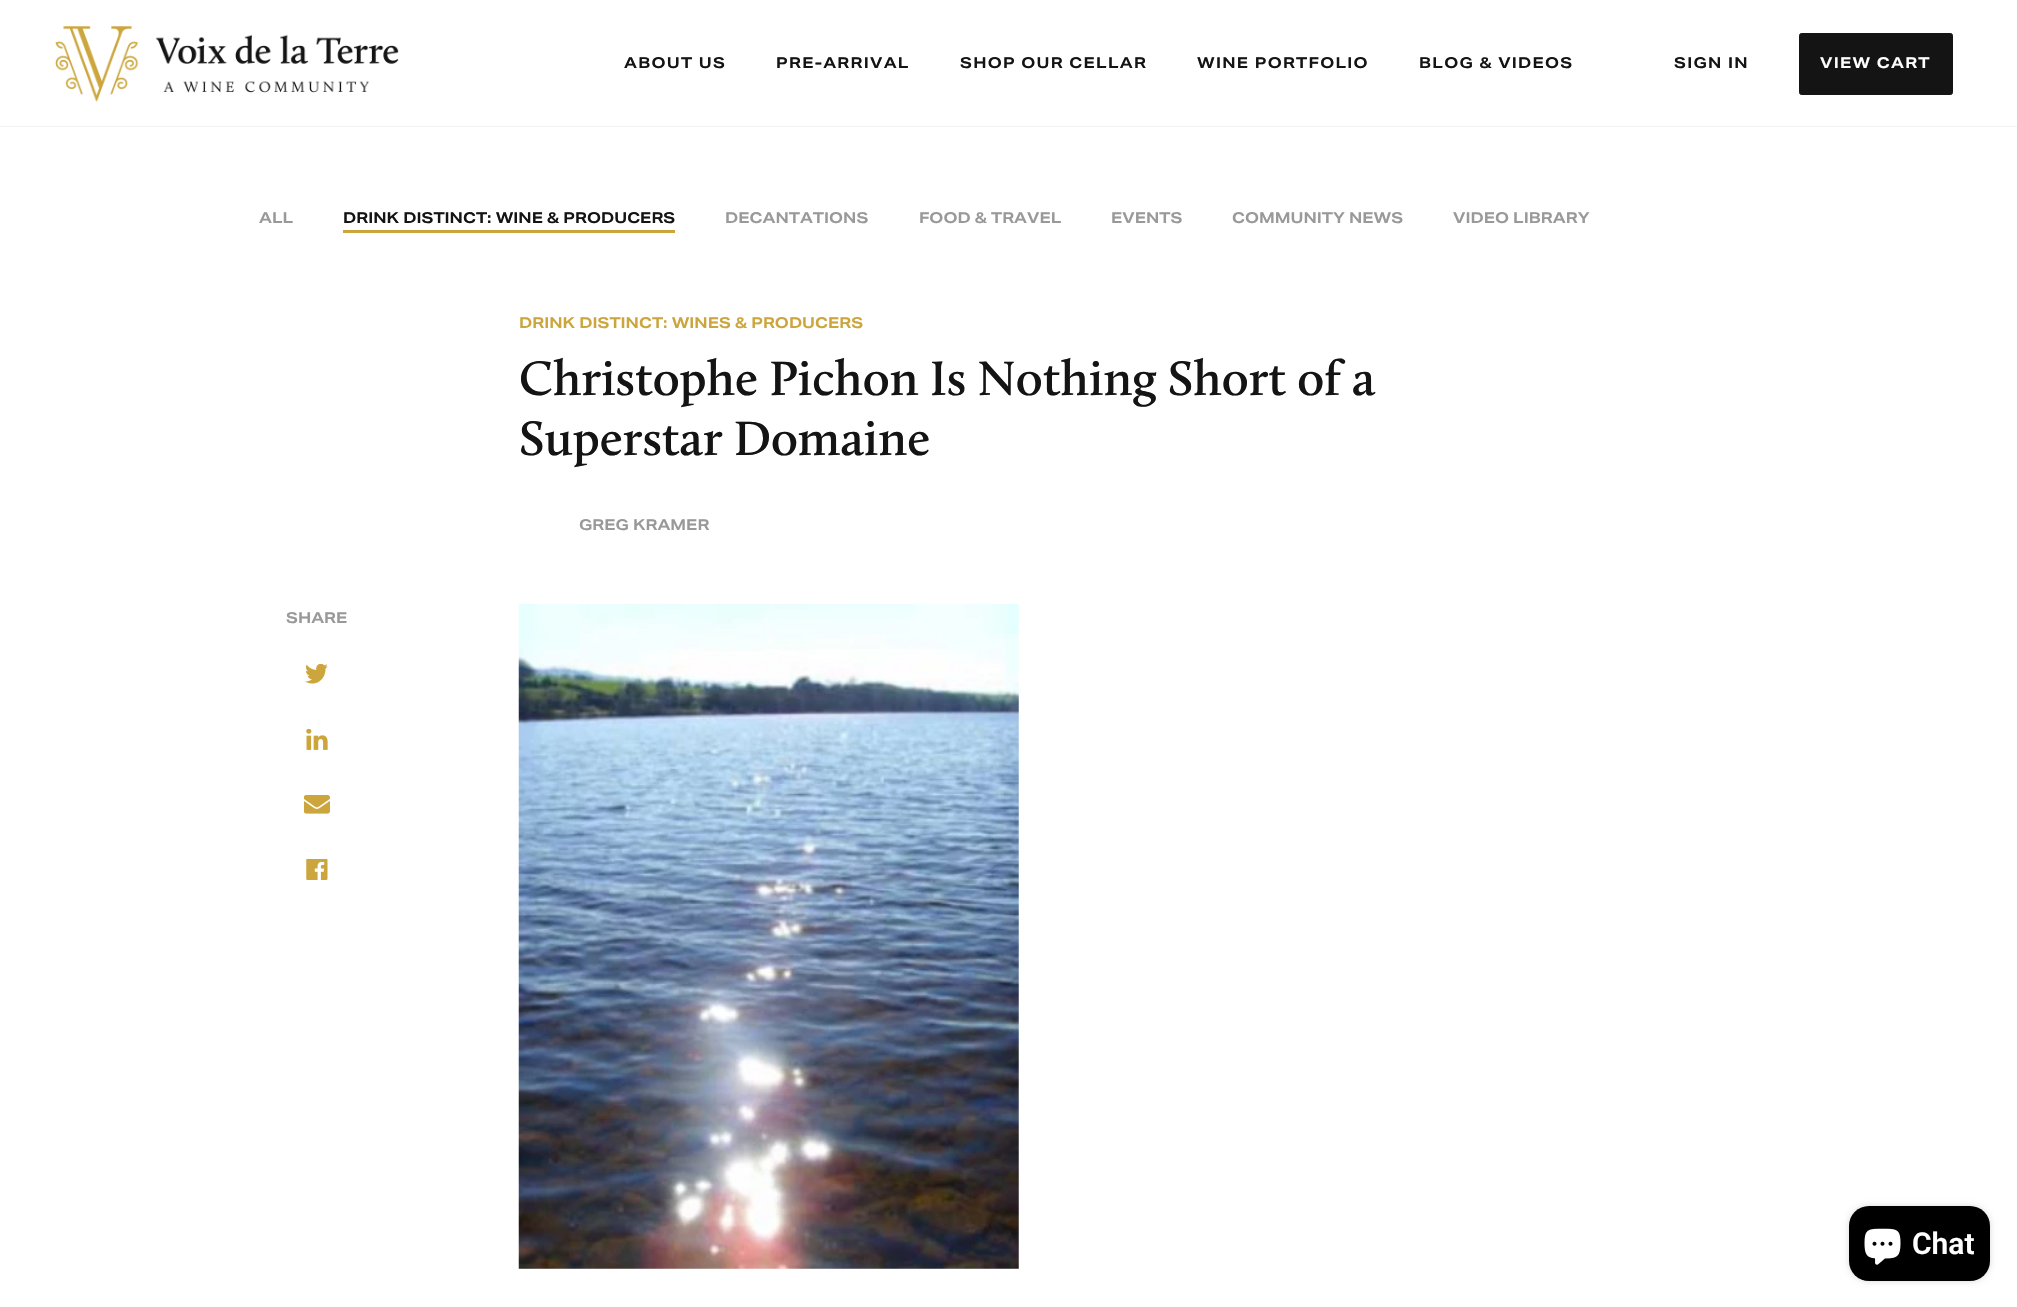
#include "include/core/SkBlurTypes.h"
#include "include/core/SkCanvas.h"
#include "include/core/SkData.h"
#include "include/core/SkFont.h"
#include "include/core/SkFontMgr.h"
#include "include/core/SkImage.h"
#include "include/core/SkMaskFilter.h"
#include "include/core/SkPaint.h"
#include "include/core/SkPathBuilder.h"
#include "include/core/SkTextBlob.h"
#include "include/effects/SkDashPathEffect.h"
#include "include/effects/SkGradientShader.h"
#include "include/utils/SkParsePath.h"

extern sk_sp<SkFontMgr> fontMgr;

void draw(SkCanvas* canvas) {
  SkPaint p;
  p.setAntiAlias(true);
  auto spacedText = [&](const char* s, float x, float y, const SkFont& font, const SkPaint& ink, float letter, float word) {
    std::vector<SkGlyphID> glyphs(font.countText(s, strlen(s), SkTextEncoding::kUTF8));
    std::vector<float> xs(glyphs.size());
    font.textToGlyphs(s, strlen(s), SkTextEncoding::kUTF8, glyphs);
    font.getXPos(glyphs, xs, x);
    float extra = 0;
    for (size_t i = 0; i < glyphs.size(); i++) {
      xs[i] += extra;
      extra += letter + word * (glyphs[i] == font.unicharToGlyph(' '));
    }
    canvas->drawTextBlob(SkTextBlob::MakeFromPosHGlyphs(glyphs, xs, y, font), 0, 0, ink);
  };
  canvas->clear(SK_ColorWHITE);
  p.setColor(SkColorSetRGB(242, 242, 242));
  canvas->drawRect(SkRect::MakeLTRB(0, 126, 2017, 127), p);
  canvas->drawImageRect(SkImages::DeferredFromEncodedData(SkData::MakeFromFileName("images/1.png")), SkRect::MakeLTRB(55, 26, 399, 102), SkSamplingOptions());
  p.setColor(SkColorSetRGB(20, 20, 20));
  canvas->drawRoundRect(SkRect::MakeLTRB(1799.5f, 33.5f, 1952.5f, 94.5f), 2, 2, p);
  p.setStyle(SkPaint::kStroke_Style);
  p.setStrokeWidth(1);
  canvas->drawRoundRect(SkRect::MakeLTRB(1799.5f, 33.5f, 1952.5f, 94.5f), 2, 2, p);
  p.setStyle(SkPaint::kFill_Style);
  p.setColor(SkColorSetRGB(204, 166, 61));
  canvas->drawRect(SkRect::MakeLTRB(343, 230, 675, 233), p);
  canvas->drawImageRect(SkImages::DeferredFromEncodedData(SkData::MakeFromFileName("images/2.png")), SkRect::MakeLTRB(305, 664, 328, 684), SkSamplingOptions());
  canvas->drawImageRect(SkImages::DeferredFromEncodedData(SkData::MakeFromFileName("images/3.png")), SkRect::MakeLTRB(306, 729, 328, 750), SkSamplingOptions());
  canvas->drawImageRect(SkImages::DeferredFromEncodedData(SkData::MakeFromFileName("images/4.png")), SkRect::MakeLTRB(304, 795, 330, 814), SkSamplingOptions());
  canvas->drawImageRect(SkImages::DeferredFromEncodedData(SkData::MakeFromFileName("images/5.png")), SkRect::MakeLTRB(306, 859, 328, 880), SkSamplingOptions());
  canvas->drawImageRect(SkImages::DeferredFromEncodedData(SkData::MakeFromFileName("images/6.png")), SkRect::MakeLTRB(518, 603, 1019, 1269), SkSamplingOptions());
  p.setColor(SkColorSetARGB(38, 0, 0, 0));
  p.setMaskFilter(SkMaskFilter::MakeBlur(kNormal_SkBlurStyle, 3));
  canvas->drawRoundRect(SkRect::MakeLTRB(1849, 1206, 1990, 1281), 20, 20, p);
  p.setMaskFilter(nullptr);
  p.setColor(SK_ColorBLACK);
  canvas->drawRoundRect(SkRect::MakeLTRB(1849, 1206, 1990, 1281), 20, 20, p);
  canvas->drawImageRect(SkImages::DeferredFromEncodedData(SkData::MakeFromFileName("images/7.png")), SkRect::MakeLTRB(1864, 1228, 1901, 1265), SkSamplingOptions());
  SkFont font1(fontMgr->matchFamilyStyle("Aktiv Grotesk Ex", SkFontStyle::Bold()), 15);
  font1.setSubpixel(true);
  p.setColor(SkColorSetRGB(20, 20, 20));
  spacedText("ABOUT US", 624, 68, font1, p, 1.25f, 0);
  spacedText("PRE-ARRIVAL", 776, 68, font1, p, 1.25f, 0);
  spacedText("SHOP OUR CELLAR", 960, 68, font1, p, 1.25f, 0);
  spacedText("WINE PORTFOLIO", 1197, 68, font1, p, 1.25f, 0);
  spacedText("BLOG & VIDEOS", 1419, 68, font1, p, 1.25f, 0);
  spacedText("SIGN IN", 1674, 68, font1, p, 1.25f, 0);
  p.setColor(SK_ColorWHITE);
  spacedText("VIEW CART", 1820, 68, font1, p, 1.25f, 0);
  p.setColor(SkColorSetRGB(153, 153, 153));
  canvas->drawString("ALL", 259, 223, font1, p);
  p.setColor(SkColorSetRGB(20, 20, 20));
  canvas->drawString("DRINK DISTINCT: WINE & PRODUCERS", 343, 223, font1, p);
  p.setColor(SkColorSetRGB(153, 153, 153));
  canvas->drawString("DECANTATIONS", 725, 223, font1, p);
  canvas->drawString("FOOD & TRAVEL", 919, 223, font1, p);
  canvas->drawString("EVENTS", 1111, 223, font1, p);
  canvas->drawString("COMMUNITY NEWS", 1232, 223, font1, p);
  canvas->drawString("VIDEO LIBRARY", 1453, 223, font1, p);
  p.setColor(SkColorSetRGB(204, 166, 61));
  canvas->drawString("DRINK DISTINCT: WINES & PRODUCERS", 519, 328, font1, p);
  SkFont font2(fontMgr->matchFamilyStyle("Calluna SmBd", SkFontStyle(600, SkFontStyle::kNormal_Width, SkFontStyle::kUpright_Slant)), 50);
  font2.setSubpixel(true);
  p.setColor(SkColorSetRGB(20, 20, 20));
  canvas->drawString("Christophe Pichon Is Nothing Short of a", 519, 395, font2, p);
  canvas->drawString("Superstar Domaine", 519, 455, font2, p);
  p.setColor(SkColorSetRGB(153, 153, 153));
  canvas->drawString("GREG KRAMER", 579, 530, font1, p);
  canvas->drawString("SHARE", 286, 623, font1, p);
  SkFont font3(fontMgr->matchFamilyStyle("Roboto", SkFontStyle(600, SkFontStyle::kNormal_Width, SkFontStyle::kUpright_Slant)), 30);
  font3.setSubpixel(true);
  p.setColor(SK_ColorWHITE);
  canvas->drawString("Chat", 1912, 1254, font3, p);
}
